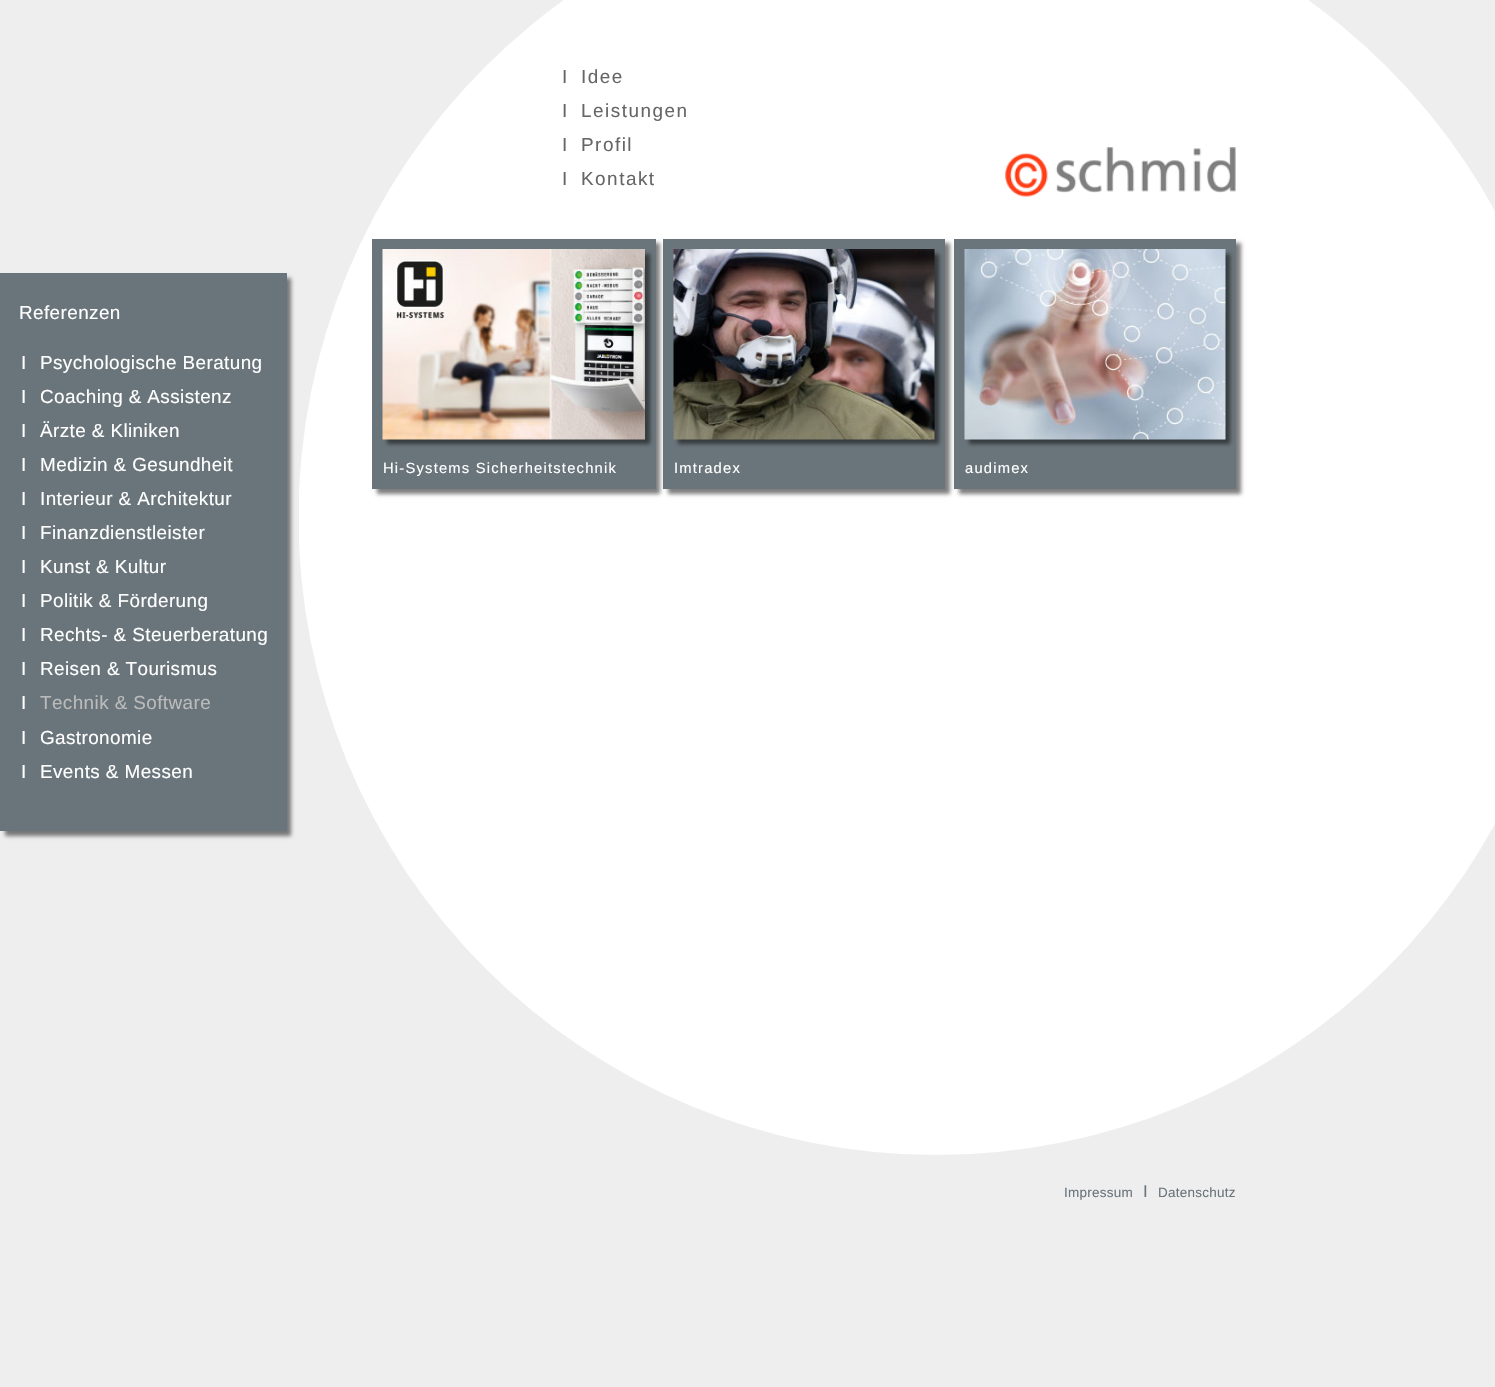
#include "include/core/SkBlurTypes.h"
#include "include/core/SkCanvas.h"
#include "include/core/SkData.h"
#include "include/core/SkFont.h"
#include "include/core/SkFontMgr.h"
#include "include/core/SkImage.h"
#include "include/core/SkMaskFilter.h"
#include "include/core/SkPaint.h"
#include "include/core/SkPathBuilder.h"
#include "include/core/SkTextBlob.h"
#include "include/effects/SkDashPathEffect.h"
#include "include/effects/SkGradientShader.h"
#include "include/utils/SkParsePath.h"

extern sk_sp<SkFontMgr> fontMgr;

void draw(SkCanvas* canvas) {
  SkPaint p;
  p.setAntiAlias(true);
  auto spacedText = [&](const char* s, float x, float y, const SkFont& font, const SkPaint& ink, float letter, float word) {
    std::vector<SkGlyphID> glyphs(font.countText(s, strlen(s), SkTextEncoding::kUTF8));
    std::vector<float> xs(glyphs.size());
    font.textToGlyphs(s, strlen(s), SkTextEncoding::kUTF8, glyphs);
    font.getXPos(glyphs, xs, x);
    float extra = 0;
    for (size_t i = 0; i < glyphs.size(); i++) {
      xs[i] += extra;
      extra += letter + word * (glyphs[i] == font.unicharToGlyph(' '));
    }
    canvas->drawTextBlob(SkTextBlob::MakeFromPosHGlyphs(glyphs, xs, y, font), 0, 0, ink);
  };
  canvas->clear(SkColorSetRGB(238, 238, 238));
  p.setColor(SkColorSetARGB(128, 0, 0, 0));
  p.setMaskFilter(SkMaskFilter::MakeBlur(kNormal_SkBlurStyle, 2));
  canvas->drawRect(SkRect::MakeLTRB(5, 278, 291, 836), p);
  p.setMaskFilter(nullptr);
  p.setColor(SkColorSetRGB(106, 117, 123));
  canvas->drawRect(SkRect::MakeLTRB(0, 273, 287, 831), p);
  canvas->save();
  canvas->clipRect(SkRect::MakeLTRB(299, 0, 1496, 1155));
  p.setColor(SK_ColorWHITE);
  canvas->drawCircle(936, 517.5f, 637.5f, p);
  canvas->restore();
  canvas->drawImageRect(SkImages::DeferredFromEncodedData(SkData::MakeFromFileName("images/1.png")), SkRect::MakeLTRB(1005, 147, 1236, 197), SkSamplingOptions());
  p.setColor(SkColorSetARGB(128, 0, 0, 0));
  p.setMaskFilter(SkMaskFilter::MakeBlur(kNormal_SkBlurStyle, 2));
  canvas->drawRect(SkRect::MakeLTRB(377, 243, 660, 494), p);
  p.setMaskFilter(nullptr);
  p.setColor(SkColorSetRGB(106, 117, 123));
  canvas->drawRect(SkRect::MakeLTRB(372, 239, 656, 489), p);
  p.setColor(SkColorSetARGB(128, 0, 0, 0));
  p.setMaskFilter(SkMaskFilter::MakeBlur(kNormal_SkBlurStyle, 2));
  canvas->drawRect(SkRect::MakeLTRB(387, 254, 650, 444), p);
  p.setMaskFilter(nullptr);
  canvas->drawImageRect(SkImages::DeferredFromEncodedData(SkData::MakeFromFileName("images/2.png")), SkRect::MakeLTRB(382, 249, 645, 440), SkSamplingOptions());
  p.setMaskFilter(SkMaskFilter::MakeBlur(kNormal_SkBlurStyle, 2));
  canvas->drawRect(SkRect::MakeLTRB(668, 243, 950, 494), p);
  p.setMaskFilter(nullptr);
  p.setColor(SkColorSetRGB(106, 117, 123));
  canvas->drawRect(SkRect::MakeLTRB(663, 239, 945, 489), p);
  p.setColor(SkColorSetARGB(128, 0, 0, 0));
  p.setMaskFilter(SkMaskFilter::MakeBlur(kNormal_SkBlurStyle, 2));
  canvas->drawRect(SkRect::MakeLTRB(678, 254, 939, 444), p);
  p.setMaskFilter(nullptr);
  canvas->drawImageRect(SkImages::DeferredFromEncodedData(SkData::MakeFromFileName("images/3.png")), SkRect::MakeLTRB(673, 249, 935, 440), SkSamplingOptions());
  p.setMaskFilter(SkMaskFilter::MakeBlur(kNormal_SkBlurStyle, 2));
  canvas->drawRect(SkRect::MakeLTRB(959, 243, 1241, 494), p);
  p.setMaskFilter(nullptr);
  p.setColor(SkColorSetRGB(106, 117, 123));
  canvas->drawRect(SkRect::MakeLTRB(954, 239, 1236, 489), p);
  p.setColor(SkColorSetARGB(128, 0, 0, 0));
  p.setMaskFilter(SkMaskFilter::MakeBlur(kNormal_SkBlurStyle, 2));
  canvas->drawRect(SkRect::MakeLTRB(969, 254, 1230, 444), p);
  p.setMaskFilter(nullptr);
  canvas->drawImageRect(SkImages::DeferredFromEncodedData(SkData::MakeFromFileName("images/4.png")), SkRect::MakeLTRB(964, 249, 1226, 440), SkSamplingOptions());
  SkFont font1(fontMgr->matchFamilyStyle("Liberation Sans", SkFontStyle::Normal()), 18.9f);
  font1.setSubpixel(true);
  p.setColor(SK_ColorWHITE);
  spacedText("Referenzen", 19, 319, font1, p, 0.4f, 0);
  spacedText("I", 21, 369, font1, p, 0.4f, 0);
  spacedText("Psychologische Beratung", 40, 369, font1, p, 0.4f, 0);
  spacedText("I", 21, 403, font1, p, 0.4f, 0);
  spacedText("Coaching & Assistenz", 40, 403, font1, p, 0.4f, 0);
  spacedText("I", 21, 437, font1, p, 0.4f, 0);
  spacedText("Ärzte & Kliniken", 40, 437, font1, p, 0.4f, 0);
  spacedText("I", 21, 471, font1, p, 0.4f, 0);
  spacedText("Medizin & Gesundheit", 40, 471, font1, p, 0.4f, 0);
  spacedText("I", 21, 505, font1, p, 0.4f, 0);
  spacedText("Interieur & Architektur", 40, 505, font1, p, 0.4f, 0);
  spacedText("I", 21, 539, font1, p, 0.4f, 0);
  spacedText("Finanzdienstleister", 40, 539, font1, p, 0.4f, 0);
  spacedText("I", 21, 573, font1, p, 0.4f, 0);
  spacedText("Kunst & Kultur", 40, 573, font1, p, 0.4f, 0);
  spacedText("I", 21, 607, font1, p, 0.4f, 0);
  spacedText("Politik & Förderung", 40, 607, font1, p, 0.4f, 0);
  spacedText("I", 21, 641, font1, p, 0.4f, 0);
  spacedText("Rechts- & Steuerberatung", 40, 641, font1, p, 0.4f, 0);
  spacedText("I", 21, 675, font1, p, 0.4f, 0);
  spacedText("Reisen & Tourismus", 40, 675, font1, p, 0.4f, 0);
  spacedText("I", 21, 709, font1, p, 0.4f, 0);
  p.setColor(SkColorSetRGB(187, 187, 187));
  spacedText("Technik & Software", 40, 709, font1, p, 0.4f, 0);
  p.setColor(SK_ColorWHITE);
  spacedText("I", 21, 744, font1, p, 0.4f, 0);
  spacedText("Gastronomie", 40, 744, font1, p, 0.4f, 0);
  spacedText("I", 21, 778, font1, p, 0.4f, 0);
  spacedText("Events & Messen", 40, 778, font1, p, 0.4f, 0);
  p.setColor(SkColorSetRGB(102, 102, 102));
  spacedText("I", 562, 83, font1, p, 0.4f, 0);
  spacedText("Idee", 581, 83, font1, p, 1.5f, 0);
  spacedText("I", 562, 117, font1, p, 0.4f, 0);
  spacedText("Leistungen", 581, 117, font1, p, 1.5f, 0);
  spacedText("I", 562, 151, font1, p, 0.4f, 0);
  spacedText("Profil", 581, 151, font1, p, 1.5f, 0);
  spacedText("I", 562, 185, font1, p, 0.4f, 0);
  spacedText("Kontakt", 581, 185, font1, p, 1.5f, 0);
  SkFont font2(fontMgr->matchFamilyStyle("Liberation Sans", SkFontStyle::Normal()), 14.75f);
  font2.setSubpixel(true);
  p.setColor(SK_ColorWHITE);
  spacedText("Hi-Systems Sicherheitstechnik", 383, 473, font2, p, 1.2f, 0);
  spacedText("Imtradex", 674, 473, font2, p, 1.2f, 0);
  spacedText("audimex", 965, 473, font2, p, 1.2f, 0);
  SkFont font3(fontMgr->matchFamilyStyle("Liberation Sans", SkFontStyle::Normal()), 13.5f);
  font3.setSubpixel(true);
  p.setColor(SkColorSetRGB(106, 117, 123));
  spacedText("Impressum", 1064, 1197, font3, p, 0.25f, 0);
  SkFont font4(fontMgr->matchFamilyStyle("Liberation Sans", SkFontStyle::Normal()), 17);
  font4.setSubpixel(true);
  canvas->drawString("I", 1143, 1197, font4, p);
  spacedText("Datenschutz", 1158, 1197, font3, p, 0.25f, 0);
}
